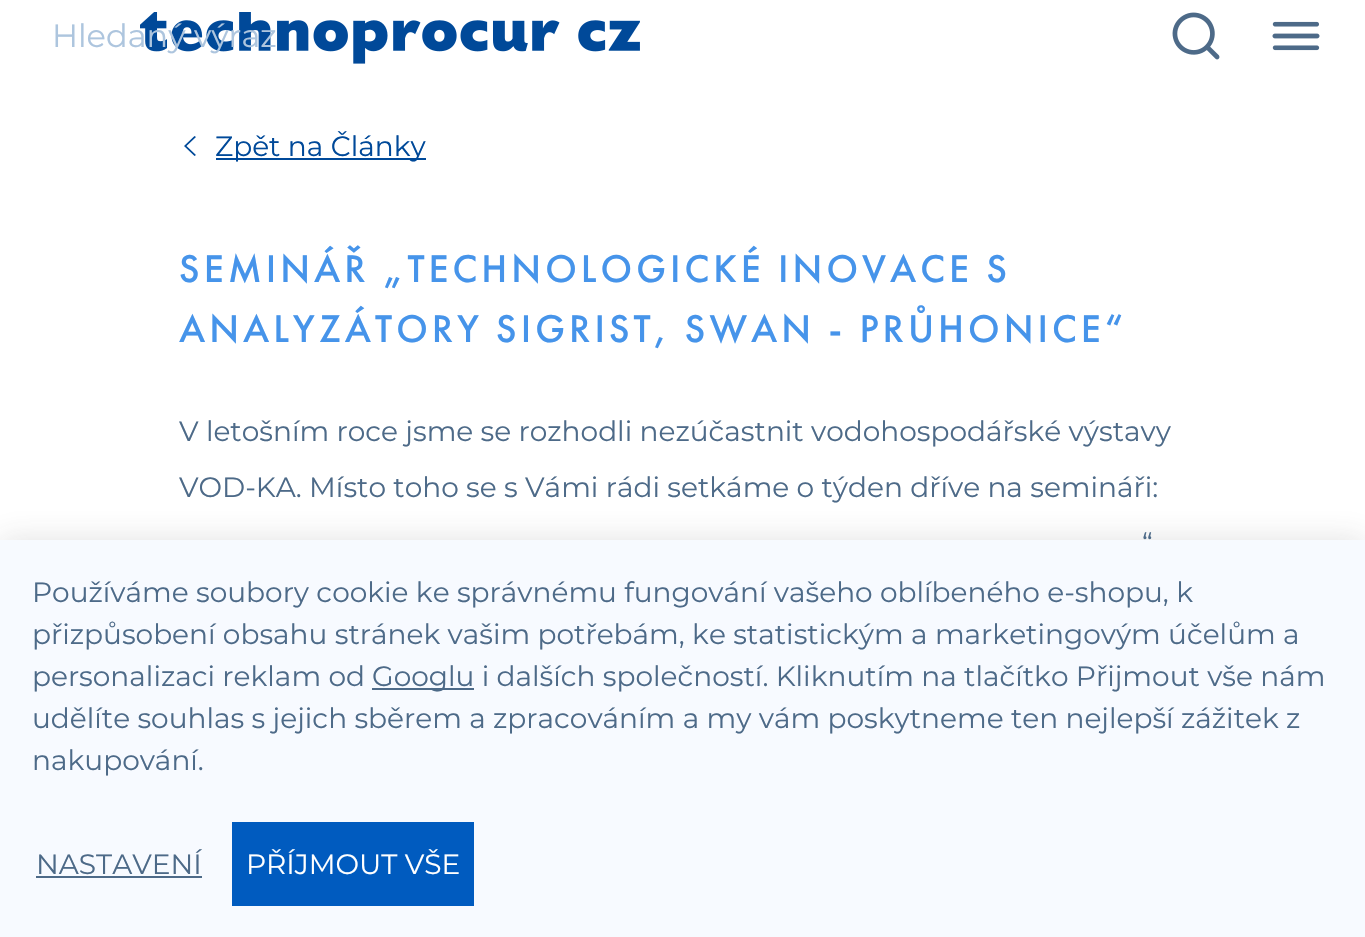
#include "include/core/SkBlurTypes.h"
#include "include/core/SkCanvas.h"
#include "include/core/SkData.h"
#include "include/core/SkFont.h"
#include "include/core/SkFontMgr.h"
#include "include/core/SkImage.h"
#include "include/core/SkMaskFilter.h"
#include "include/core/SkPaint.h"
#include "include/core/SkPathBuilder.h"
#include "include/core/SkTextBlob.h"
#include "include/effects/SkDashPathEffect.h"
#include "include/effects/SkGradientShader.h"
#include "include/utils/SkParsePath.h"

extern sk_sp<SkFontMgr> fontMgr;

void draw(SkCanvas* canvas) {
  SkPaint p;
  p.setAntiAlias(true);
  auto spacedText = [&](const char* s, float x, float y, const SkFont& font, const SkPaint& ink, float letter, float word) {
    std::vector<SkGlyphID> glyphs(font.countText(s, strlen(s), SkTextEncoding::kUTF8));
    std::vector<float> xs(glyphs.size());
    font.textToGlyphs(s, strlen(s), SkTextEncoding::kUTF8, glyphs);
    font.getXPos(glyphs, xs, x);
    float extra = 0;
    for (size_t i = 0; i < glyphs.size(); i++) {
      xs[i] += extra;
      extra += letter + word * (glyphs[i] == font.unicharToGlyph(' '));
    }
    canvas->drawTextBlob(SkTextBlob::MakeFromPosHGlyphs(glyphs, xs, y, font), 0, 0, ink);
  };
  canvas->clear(SK_ColorWHITE);
  canvas->drawImageRect(SkImages::DeferredFromEncodedData(SkData::MakeFromFileName("images/1.png")), SkRect::MakeLTRB(140, 12, 640, 64), SkSamplingOptions());
  canvas->drawImageRect(SkImages::DeferredFromEncodedData(SkData::MakeFromFileName("images/2.png")), SkRect::MakeLTRB(1172, 12, 1220, 60), SkSamplingOptions());
  canvas->drawImageRect(SkImages::DeferredFromEncodedData(SkData::MakeFromFileName("images/3.png")), SkRect::MakeLTRB(1272, 21, 1320, 51), SkSamplingOptions());
  p.setColor(SkColorSetRGB(0, 73, 153));
  canvas->drawPath(SkPathBuilder().moveTo(196, 137).lineTo(186.5f, 146).lineTo(196, 155).lineTo(194.5f, 156).lineTo(184, 146).lineTo(194.5f, 136).close().detach(), p);
  canvas->drawRect(SkRect::MakeLTRB(216, 158, 426, 160), p);
  p.setColor(SkColorSetARGB(38, 55, 55, 55));
  p.setMaskFilter(SkMaskFilter::MakeBlur(kNormal_SkBlurStyle, 15));
  canvas->drawRect(SkRect::MakeLTRB(0, 540, 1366, 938), p);
  p.setMaskFilter(nullptr);
  p.setColor(SkColorSetRGB(247, 250, 255));
  canvas->drawRect(SkRect::MakeLTRB(0, 540, 1365, 937), p);
  p.setColor(SkColorSetRGB(77, 106, 136));
  canvas->drawRect(SkRect::MakeLTRB(372, 688, 474, 690), p);
  canvas->drawRect(SkRect::MakeLTRB(36, 876, 202, 878), p);
  p.setColor(SkColorSetRGB(0, 91, 191));
  canvas->drawRect(SkRect::MakeLTRB(232, 822, 474, 906), p);
  SkFont font1(fontMgr->matchFamilyStyle("Montserrat", SkFontStyle::Normal()), 32);
  font1.setSubpixel(true);
  p.setColor(SkColorSetRGB(173, 197, 222));
  canvas->drawString("Hledaný výraz", 52, 47, font1, p);
  SkFont font2(fontMgr->matchFamilyStyle("Montserrat", SkFontStyle::Normal()), 28);
  font2.setSubpixel(true);
  p.setColor(SkColorSetRGB(0, 73, 153));
  canvas->drawString("Zpět na Články", 215, 156, font2, p);
  SkFont font3(fontMgr->matchFamilyStyle("Futura PT", SkFontStyle(500, SkFontStyle::kNormal_Width, SkFontStyle::kUpright_Slant)), 40);
  font3.setSubpixel(true);
  p.setColor(SkColorSetRGB(70, 148, 234));
  spacedText("SEMINÁŘ „TECHNOLOGICKÉ INOVACE S", 179, 282, font3, p, 4, 0);
  spacedText("ANALYZÁTORY SIGRIST, SWAN - PRŮHONICE“", 179, 342, font3, p, 4, 0);
  p.setColor(SkColorSetRGB(77, 106, 136));
  canvas->drawString("V letošním roce jsme se rozhodli nezúčastnit vodohospodářské výstavy", 179, 441, font2, p);
  canvas->drawString("VOD-KA. Místo toho se s Vámi rádi setkáme o týden dříve na semináři:", 179, 497, font2, p);
  canvas->drawString("“", 1142, 553, font2, p);
  canvas->drawString("Používáme soubory cookie ke správnému fungování vašeho oblíbeného e-shopu, k", 32, 602, font2, p);
  canvas->drawString("přizpůsobení obsahu stránek vašim potřebám, ke statistickým a marketingovým účelům a", 32, 644, font2, p);
  canvas->drawString("personalizaci reklam od", 32, 686, font2, p);
  canvas->drawString("Googlu i dalších společností. Kliknutím na tlačítko Přijmout vše nám", 372, 686, font2, p);
  canvas->drawString("udělíte souhlas s jejich sběrem a zpracováním a my vám poskytneme ten nejlepší zážitek z", 32, 728, font2, p);
  canvas->drawString("nakupování.", 32, 770, font2, p);
  canvas->drawString("NASTAVENÍ", 36, 874, font2, p);
  p.setColor(SK_ColorWHITE);
  canvas->drawString("PŘÍJMOUT VŠE", 246, 874, font2, p);
}
